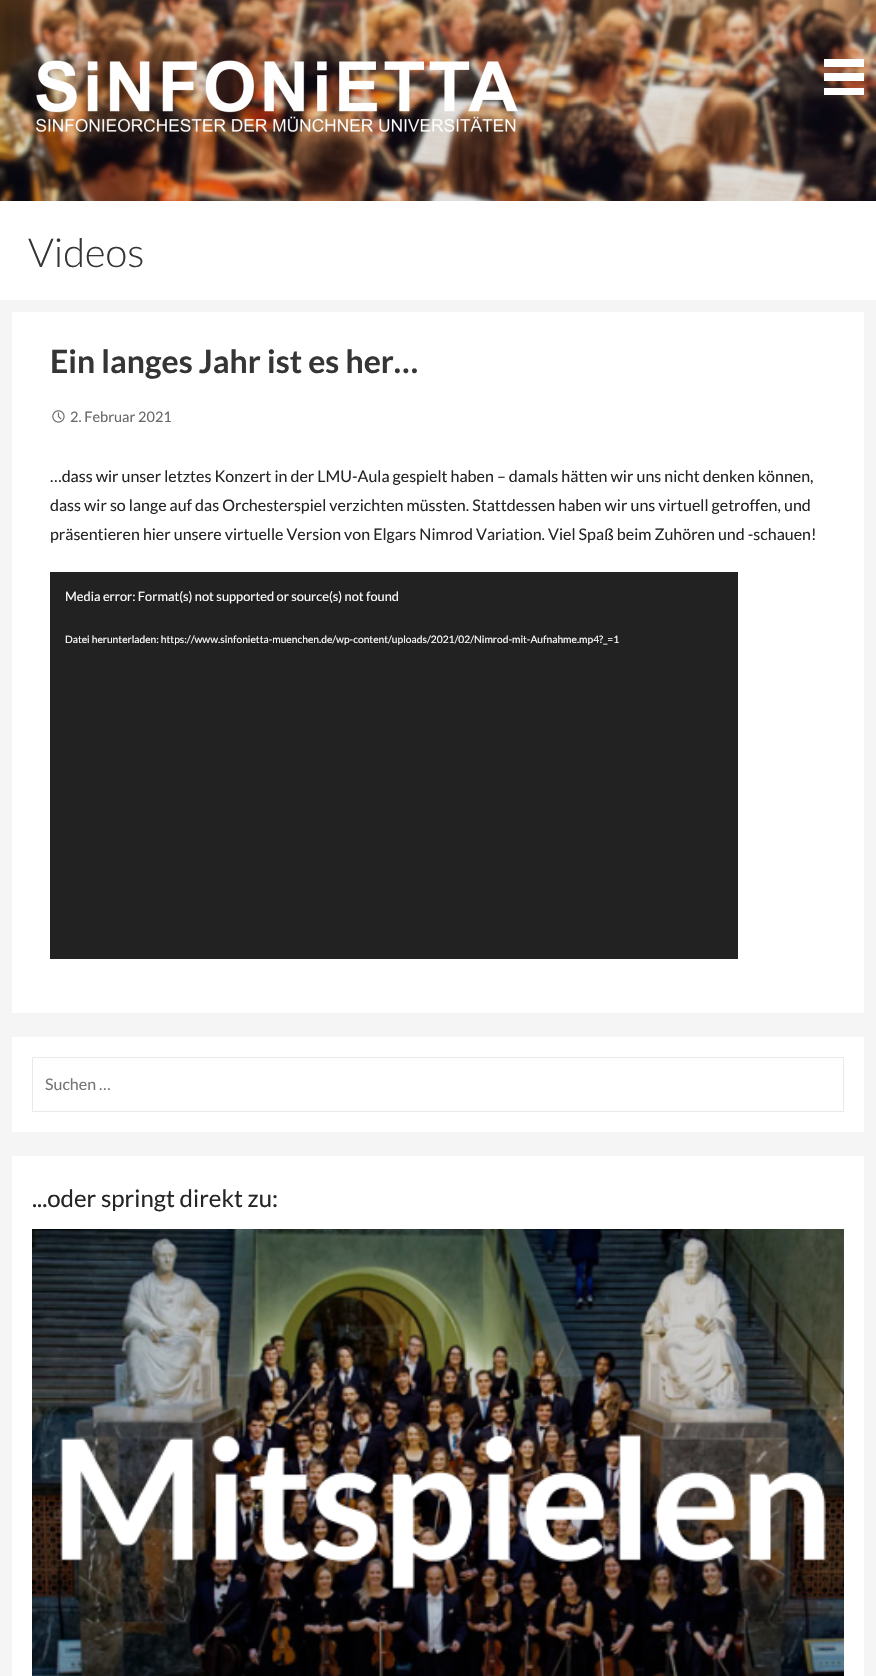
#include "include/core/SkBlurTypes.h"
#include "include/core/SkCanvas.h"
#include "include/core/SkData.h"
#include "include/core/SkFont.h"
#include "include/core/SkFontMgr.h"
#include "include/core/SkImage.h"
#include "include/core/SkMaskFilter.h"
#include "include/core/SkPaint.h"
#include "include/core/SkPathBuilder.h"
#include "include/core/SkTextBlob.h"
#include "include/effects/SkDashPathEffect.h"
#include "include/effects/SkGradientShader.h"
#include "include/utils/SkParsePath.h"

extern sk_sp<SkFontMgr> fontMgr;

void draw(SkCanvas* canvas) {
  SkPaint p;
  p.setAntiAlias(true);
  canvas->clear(SkColorSetRGB(245, 245, 245));
  canvas->drawImageRect(SkImages::DeferredFromEncodedData(SkData::MakeFromFileName("images/1.png")), SkRect::MakeLTRB(0, 0, 876, 201), SkSamplingOptions());
  canvas->drawImageRect(SkImages::DeferredFromEncodedData(SkData::MakeFromFileName("images/2.png")), SkRect::MakeLTRB(36, 60, 518, 132), SkSamplingOptions());
  p.setColor(SK_ColorWHITE);
  canvas->drawRect(SkRect::MakeLTRB(824, 59, 864, 67), p);
  canvas->drawRect(SkRect::MakeLTRB(824, 73, 864, 81), p);
  canvas->drawRect(SkRect::MakeLTRB(824, 88, 864, 95), p);
  canvas->drawRect(SkRect::MakeLTRB(0, 201, 876, 300), p);
  canvas->drawRect(SkRect::MakeLTRB(12, 312, 864, 1013), p);
  canvas->drawImageRect(SkImages::DeferredFromEncodedData(SkData::MakeFromFileName("images/3.png")), SkRect::MakeLTRB(52, 410, 65, 423), SkSamplingOptions());
  p.setColor(SkColorSetRGB(34, 34, 34));
  canvas->drawRect(SkRect::MakeLTRB(50, 572, 738, 959), p);
  p.setColor(SK_ColorWHITE);
  canvas->drawRect(SkRect::MakeLTRB(12, 1037, 864, 1132), p);
  p.setStyle(SkPaint::kStroke_Style);
  p.setStrokeWidth(1);
  p.setColor(SkColorSetRGB(233, 233, 233));
  canvas->drawRect(SkRect::MakeLTRB(32.5f, 1057.5f, 843.5f, 1111.5f), p);
  p.setStyle(SkPaint::kFill_Style);
  p.setColor(SK_ColorWHITE);
  canvas->drawRect(SkRect::MakeLTRB(12, 1156, 864, 1676), p);
  canvas->drawImageRect(SkImages::DeferredFromEncodedData(SkData::MakeFromFileName("images/4.png")), SkRect::MakeLTRB(32, 1229, 844, 1676), SkSamplingOptions());
  SkFont font1(fontMgr->matchFamilyStyle("Lato", SkFontStyle(300, SkFontStyle::kNormal_Width, SkFontStyle::kUpright_Slant)), 40);
  font1.setSubpixel(true);
  p.setColor(SkColorSetRGB(53, 53, 53));
  canvas->drawString("Videos", 28, 267, font1, p);
  SkFont font2(fontMgr->matchFamilyStyle("Lato", SkFontStyle::Bold()), 32);
  font2.setSubpixel(true);
  canvas->drawString("Ein langes Jahr ist es her…", 50, 373, font2, p);
  SkFont font3(fontMgr->matchFamilyStyle("Lato", SkFontStyle::Normal()), 14.5f);
  font3.setSubpixel(true);
  p.setColor(SkColorSetRGB(104, 104, 104));
  canvas->drawString("2. Februar 2021", 70, 422, font3, p);
  SkFont font4(fontMgr->matchFamilyStyle("Lato", SkFontStyle::Normal()), 16);
  font4.setSubpixel(true);
  p.setColor(SkColorSetRGB(37, 37, 37));
  canvas->drawString("…dass wir unser letztes Konzert in der LMU-Aula gespielt haben – damals hätten wir uns nicht denken können,", 50, 482, font4, p);
  canvas->drawString("dass wir so lange auf das Orchesterspiel verzichten müssten. Stattdessen haben wir uns virtuell getroffen, und", 50, 511, font4, p);
  canvas->drawString("präsentieren hier unsere virtuelle Version von Elgars Nimrod Variation. Viel Spaß beim Zuhören und -schauen!", 50, 540, font4, p);
  SkFont font5(fontMgr->matchFamilyStyle("Lato", SkFontStyle::Normal()), 12.8f);
  font5.setSubpixel(true);
  p.setColor(SK_ColorWHITE);
  canvas->drawString("Media error: Format(s) not supported or source(s) not found", 65, 601, font5, p);
  SkFont font6(fontMgr->matchFamilyStyle("Lato", SkFontStyle::Normal()), 10.25f);
  font6.setSubpixel(true);
  canvas->drawString("Datei herunterladen: https://www.sinfonietta-muenchen.de/wp-content/uploads/2021/02/Nimrod-mit-Aufnahme.mp4?_=1", 65, 643, font6, p);
  p.setColor(SkColorSetRGB(117, 117, 117));
  canvas->drawString("Suchen …", 45, 1090, font4, p);
  SkFont font7(fontMgr->matchFamilyStyle("Lato", SkFontStyle::Normal()), 24);
  font7.setSubpixel(true);
  p.setColor(SkColorSetRGB(37, 37, 37));
  canvas->drawString("...oder springt direkt zu:", 32, 1207, font7, p);
}
